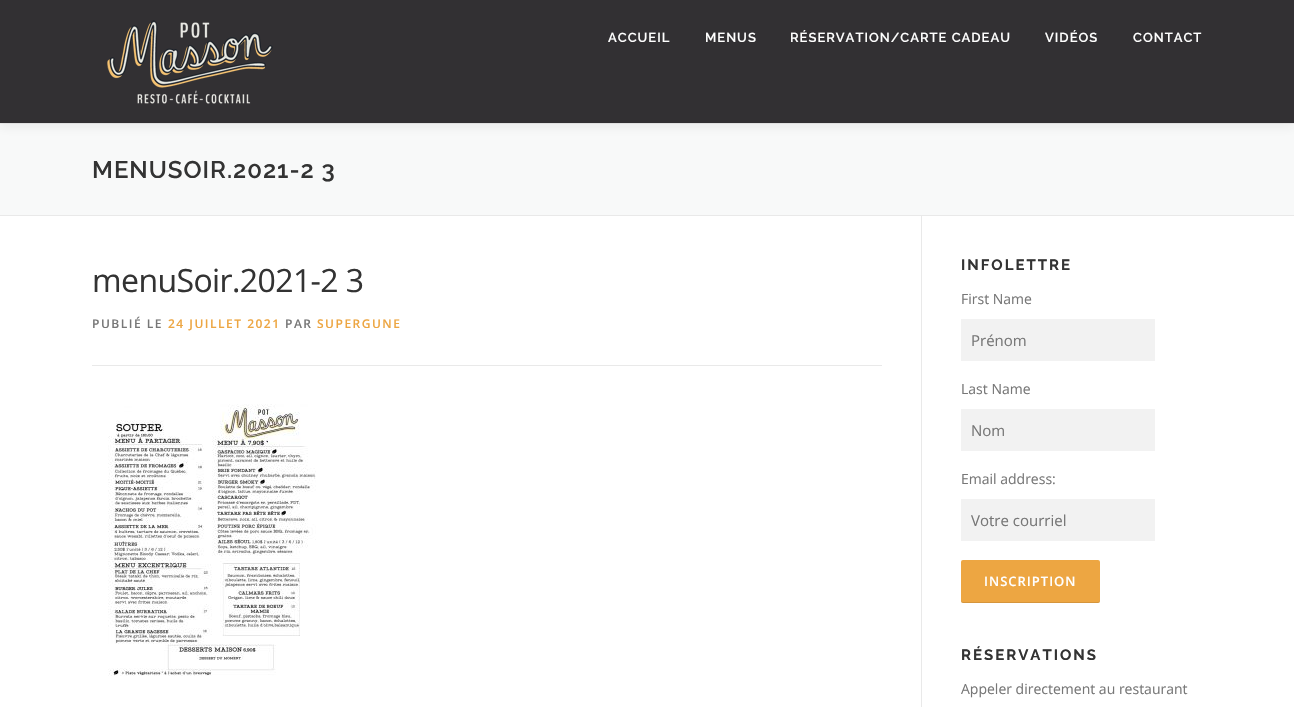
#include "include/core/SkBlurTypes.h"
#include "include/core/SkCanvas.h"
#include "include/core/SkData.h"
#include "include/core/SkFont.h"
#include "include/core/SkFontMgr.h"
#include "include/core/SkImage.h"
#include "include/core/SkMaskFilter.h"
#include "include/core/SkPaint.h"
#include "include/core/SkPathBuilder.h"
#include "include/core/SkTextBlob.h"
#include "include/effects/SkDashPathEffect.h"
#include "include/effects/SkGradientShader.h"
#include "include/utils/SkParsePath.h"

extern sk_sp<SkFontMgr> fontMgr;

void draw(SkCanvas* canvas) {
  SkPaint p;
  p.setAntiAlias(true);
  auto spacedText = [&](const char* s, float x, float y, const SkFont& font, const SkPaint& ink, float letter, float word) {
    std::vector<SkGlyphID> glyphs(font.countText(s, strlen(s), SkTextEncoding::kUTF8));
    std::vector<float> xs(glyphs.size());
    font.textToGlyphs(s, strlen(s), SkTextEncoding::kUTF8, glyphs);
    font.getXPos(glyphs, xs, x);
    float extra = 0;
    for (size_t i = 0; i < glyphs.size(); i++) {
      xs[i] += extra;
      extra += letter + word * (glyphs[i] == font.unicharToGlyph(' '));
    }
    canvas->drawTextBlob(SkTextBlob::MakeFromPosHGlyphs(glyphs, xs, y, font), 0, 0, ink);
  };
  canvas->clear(SK_ColorWHITE);
  p.setColor(SkColorSetRGB(248, 249, 249));
  canvas->drawRect(SkRect::MakeLTRB(0, 124, 1294, 215), p);
  p.setColor(SkColorSetRGB(233, 233, 233));
  canvas->drawRect(SkRect::MakeLTRB(0, 123, 1294, 124), p);
  p.setColor(SkColorSetARGB(15, 50, 50, 50));
  p.setMaskFilter(SkMaskFilter::MakeBlur(kNormal_SkBlurStyle, 5));
  canvas->drawRect(SkRect::MakeLTRB(0, 5, 1294, 128), p);
  p.setMaskFilter(nullptr);
  p.setColor(SkColorSetRGB(50, 48, 51));
  canvas->drawRect(SkRect::MakeLTRB(0, 0, 1294, 123), p);
  canvas->drawImageRect(SkImages::DeferredFromEncodedData(SkData::MakeFromFileName("images/1.png")), SkRect::MakeLTRB(107, 20, 273, 104), SkSamplingOptions());
  p.setColor(SkColorSetRGB(233, 233, 233));
  canvas->drawRect(SkRect::MakeLTRB(0, 215, 1294, 216), p);
  canvas->drawRect(SkRect::MakeLTRB(921, 216, 922, 707), p);
  canvas->drawRect(SkRect::MakeLTRB(92, 365, 882, 366), p);
  canvas->drawImageRect(SkImages::DeferredFromEncodedData(SkData::MakeFromFileName("images/2.png")), SkRect::MakeLTRB(108, 404, 316, 676), SkSamplingOptions());
  p.setColor(SkColorSetRGB(242, 242, 242));
  canvas->drawRect(SkRect::MakeLTRB(961, 319, 1155, 361), p);
  canvas->drawRect(SkRect::MakeLTRB(961, 409, 1155, 451), p);
  canvas->drawRect(SkRect::MakeLTRB(961, 499, 1155, 541), p);
  p.setColor(SkColorSetRGB(237, 166, 66));
  canvas->drawRoundRect(SkRect::MakeLTRB(961, 560, 1100, 603), 2, 2, p);
  p.setColor(SkColorSetARGB(26, 0, 0, 0));
  canvas->drawPath(SkPathBuilder().moveTo(961, 600).cubicTo(961, 601, 961, 603, 963, 603).lineTo(1098, 603).cubicTo(1100, 603, 1100, 601, 1100, 600).cubicTo(1100, 601, 1099, 602, 1098, 602).lineTo(963, 602).cubicTo(962, 602, 961, 601, 961, 600).close().detach(), p);
  SkFont font1(fontMgr->matchFamilyStyle("Raleway", SkFontStyle(600, SkFontStyle::kNormal_Width, SkFontStyle::kUpright_Slant)), 13);
  font1.setSubpixel(true);
  p.setColor(SK_ColorWHITE);
  spacedText("ACCUEIL", 608, 42, font1, p, 1, 0);
  spacedText("MENUS", 705, 42, font1, p, 1, 0);
  spacedText("RÉSERVATION/CARTE CADEAU", 790, 42, font1, p, 1, 0);
  spacedText("VIDÉOS", 1045, 42, font1, p, 1, 0);
  spacedText("CONTACT", 1133, 42, font1, p, 1, 0);
  SkFont font2(fontMgr->matchFamilyStyle("Raleway", SkFontStyle(600, SkFontStyle::kNormal_Width, SkFontStyle::kUpright_Slant)), 24);
  font2.setSubpixel(true);
  p.setColor(SkColorSetRGB(51, 51, 51));
  spacedText("MENUSOIR.2021-2 3", 92, 178, font2, p, 1, 0);
  SkFont font3(fontMgr->matchFamilyStyle("Open Sans", SkFontStyle::Normal()), 32);
  font3.setSubpixel(true);
  spacedText("menuSoir.2021-2 3", 92, 292, font3, p, -0.6f, 0);
  SkFont font4(fontMgr->matchFamilyStyle("Open Sans", SkFontStyle(600, SkFontStyle::kNormal_Width, SkFontStyle::kUpright_Slant)), 12);
  font4.setSubpixel(true);
  p.setColor(SkColorSetRGB(119, 119, 119));
  spacedText("PUBLIÉ LE", 92, 328, font4, p, 1.5f, 0);
  p.setColor(SkColorSetRGB(237, 166, 66));
  spacedText("24 JUILLET 2021", 168, 328, font4, p, 1.5f, 0);
  p.setColor(SkColorSetRGB(119, 119, 119));
  spacedText("PAR", 285, 328, font4, p, 1.5f, 0);
  p.setColor(SkColorSetRGB(237, 166, 66));
  spacedText("SUPERGUNE", 317, 328, font4, p, 1.5f, 0);
  SkFont font5(fontMgr->matchFamilyStyle("Raleway", SkFontStyle::Bold()), 15);
  font5.setSubpixel(true);
  p.setColor(SkColorSetRGB(51, 51, 51));
  spacedText("INFOLETTRE", 961, 270, font5, p, 2, 0);
  SkFont font6(fontMgr->matchFamilyStyle("Open Sans", SkFontStyle::Normal()), 14);
  font6.setSubpixel(true);
  p.setColor(SkColorSetRGB(119, 119, 119));
  canvas->drawString("First Name", 961, 304, font6, p);
  SkFont font7(fontMgr->matchFamilyStyle("Open Sans", SkFontStyle::Normal()), 15);
  font7.setSubpixel(true);
  canvas->drawString("Prénom", 971, 346, font7, p);
  canvas->drawString("Last Name", 961, 394, font6, p);
  canvas->drawString("Nom", 971, 436, font7, p);
  canvas->drawString("Email address:", 961, 484, font6, p);
  canvas->drawString("Votre courriel", 971, 526, font7, p);
  SkFont font8(fontMgr->matchFamilyStyle("Open Sans", SkFontStyle(600, SkFontStyle::kNormal_Width, SkFontStyle::kUpright_Slant)), 13);
  font8.setSubpixel(true);
  p.setColor(SK_ColorWHITE);
  spacedText("INSCRIPTION", 984, 586, font8, p, 1, 0);
  p.setColor(SkColorSetRGB(51, 51, 51));
  spacedText("RÉSERVATIONS", 961, 660, font5, p, 2, 0);
  p.setColor(SkColorSetRGB(119, 119, 119));
  canvas->drawString("Appeler directement au restaurant", 961, 694, font6, p);
}
